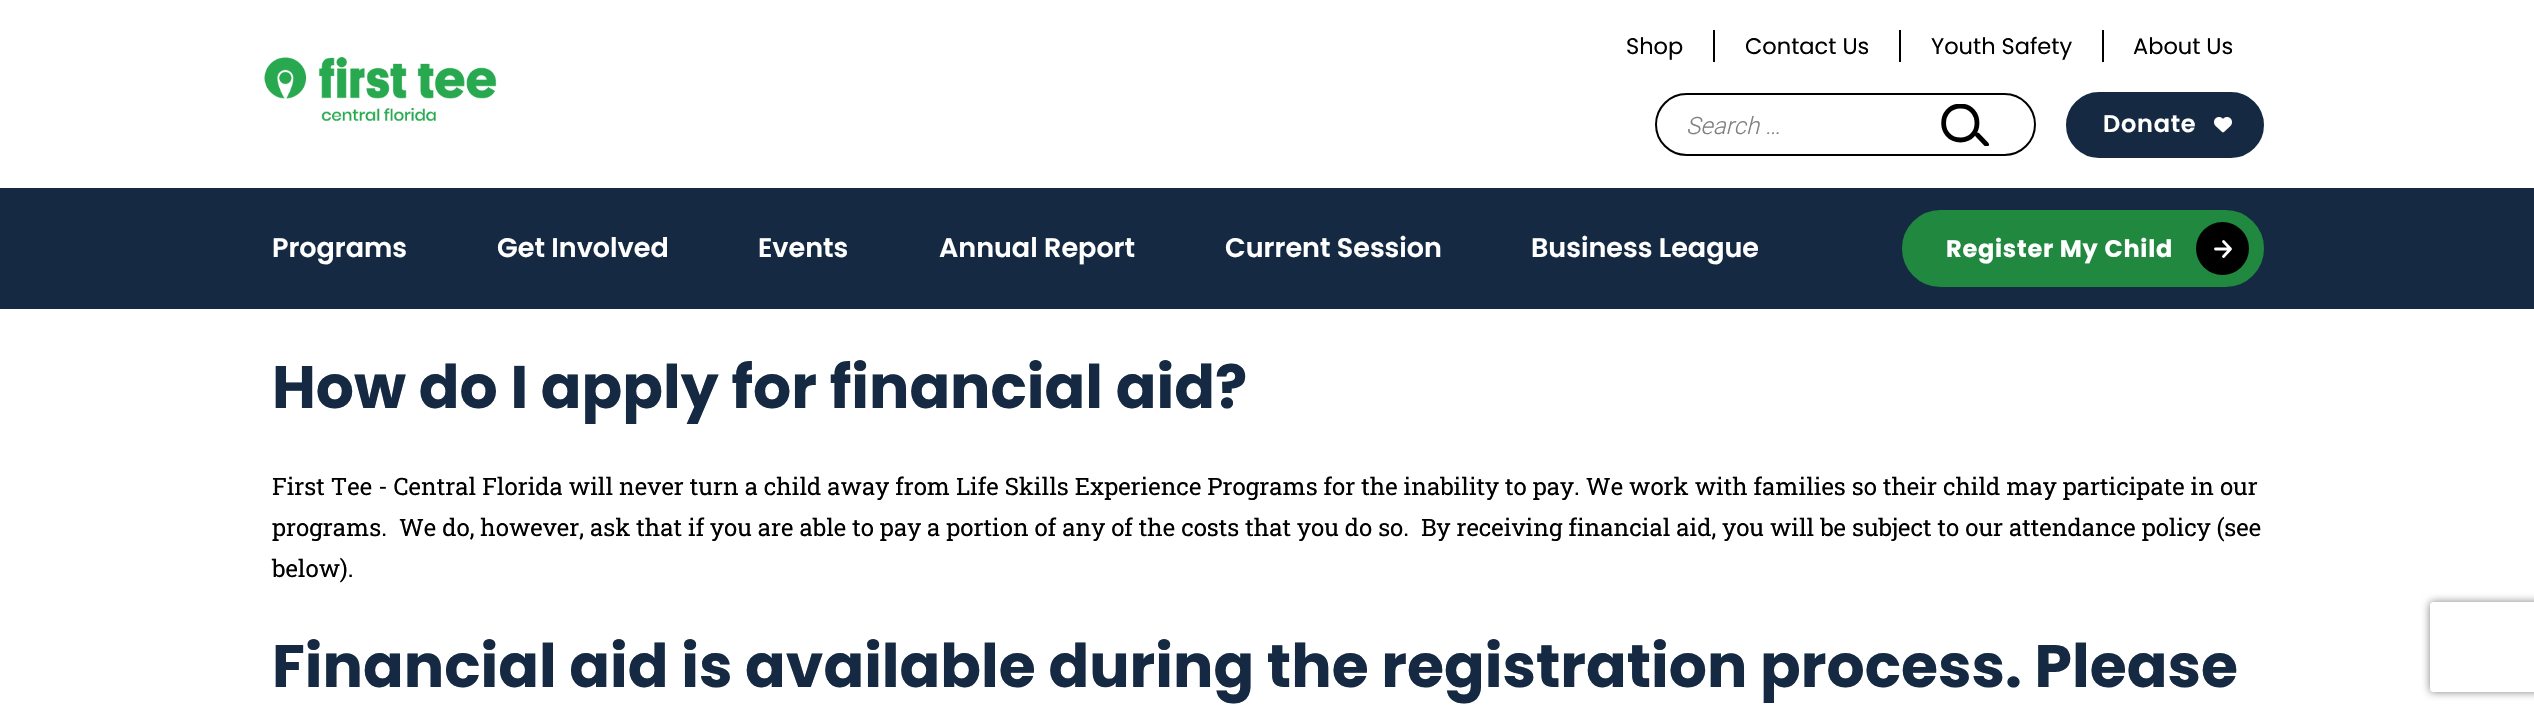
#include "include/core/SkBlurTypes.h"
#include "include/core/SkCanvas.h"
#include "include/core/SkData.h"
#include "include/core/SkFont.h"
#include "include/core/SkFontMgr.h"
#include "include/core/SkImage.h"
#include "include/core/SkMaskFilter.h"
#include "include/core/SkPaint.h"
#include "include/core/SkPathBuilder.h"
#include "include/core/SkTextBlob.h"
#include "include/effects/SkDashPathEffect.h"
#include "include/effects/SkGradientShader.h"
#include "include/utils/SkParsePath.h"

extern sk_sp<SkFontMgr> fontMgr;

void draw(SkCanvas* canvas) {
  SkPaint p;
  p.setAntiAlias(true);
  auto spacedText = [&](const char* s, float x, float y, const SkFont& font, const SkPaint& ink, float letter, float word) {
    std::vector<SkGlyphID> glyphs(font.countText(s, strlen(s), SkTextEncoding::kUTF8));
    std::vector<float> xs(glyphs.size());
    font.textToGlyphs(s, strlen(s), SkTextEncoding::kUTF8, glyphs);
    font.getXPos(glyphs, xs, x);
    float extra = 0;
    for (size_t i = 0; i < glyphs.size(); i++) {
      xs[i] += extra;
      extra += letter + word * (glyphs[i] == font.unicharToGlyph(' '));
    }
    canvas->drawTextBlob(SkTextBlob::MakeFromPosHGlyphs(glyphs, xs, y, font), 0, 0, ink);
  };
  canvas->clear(SK_ColorWHITE);
  p.setColor(SK_ColorBLACK);
  canvas->drawRect(SkRect::MakeLTRB(1713, 30, 1715, 62), p);
  canvas->drawRect(SkRect::MakeLTRB(1899, 30, 1901, 62), p);
  canvas->drawRect(SkRect::MakeLTRB(2102, 30, 2104, 62), p);
  canvas->drawImageRect(SkImages::DeferredFromEncodedData(SkData::MakeFromFileName("images/1.png")), SkRect::MakeLTRB(264, 57, 497, 121), SkSamplingOptions());
  p.setStyle(SkPaint::kStroke_Style);
  p.setStrokeWidth(2);
  canvas->drawRoundRect(SkRect::MakeLTRB(1656, 94, 2035, 155), 30.5f, 30.5f, p);
  canvas->save();
  canvas->clipRect(SkRect::MakeLTRB(1941, 104, 1989, 146));
  p.setStrokeWidth(4.8f);
  p.setStrokeCap(SkPaint::kRound_Cap);
  p.setStrokeJoin(SkPaint::kRound_Join);
  canvas->drawPath(SkPathBuilder().moveTo(1960.5f, 140).cubicTo(1982.5f, 140, 1982.5f, 106, 1960.5f, 106).cubicTo(1938, 106, 1938, 140, 1960.5f, 140).moveTo(1986.5f, 144.5f).lineTo(1977.5f, 135).detach(), p);
  canvas->restore();
  p.setStyle(SkPaint::kFill_Style);
  p.setColor(SkColorSetRGB(21, 42, 66));
  canvas->drawRoundRect(SkRect::MakeLTRB(2070, 96, 2260, 154), 29, 29, p);
  p.setStyle(SkPaint::kStroke_Style);
  p.setStrokeWidth(8);
  p.setStrokeCap(SkPaint::kButt_Cap);
  p.setStrokeJoin(SkPaint::kMiter_Join);
  canvas->drawRoundRect(SkRect::MakeLTRB(2070, 96, 2260, 154), 29, 29, p);
  canvas->drawImageRect(SkImages::DeferredFromEncodedData(SkData::MakeFromFileName("images/2.png")), SkRect::MakeLTRB(2214, 117, 2232, 133), SkSamplingOptions());
  p.setStyle(SkPaint::kFill_Style);
  canvas->drawRect(SkRect::MakeLTRB(0, 188, 2534, 309), p);
  p.setColor(SkColorSetRGB(32, 136, 63));
  canvas->drawRoundRect(SkRect::MakeLTRB(1906, 214, 2260, 283), 34.5f, 34.5f, p);
  p.setStyle(SkPaint::kStroke_Style);
  canvas->drawRoundRect(SkRect::MakeLTRB(1906, 214, 2260, 283), 34.5f, 34.5f, p);
  p.setStyle(SkPaint::kFill_Style);
  p.setColor(SK_ColorBLACK);
  canvas->drawCircle(2222.5f, 248.5f, 26.5f, p);
  p.setStyle(SkPaint::kStroke_Style);
  p.setStrokeWidth(2.8f);
  p.setStrokeCap(SkPaint::kRound_Cap);
  p.setStrokeJoin(SkPaint::kRound_Join);
  p.setColor(SK_ColorWHITE);
  canvas->drawPath(SkPathBuilder().moveTo(2215.5f, 249).lineTo(2230.5f, 249).moveTo(2230.5f, 249).lineTo(2223.5f, 241.5f).moveTo(2230.5f, 249).lineTo(2223.5f, 256.5f).detach(), p);
  canvas->save();
  canvas->clipPath(SkPathBuilder(SkPathFillType::kEvenOdd).moveTo(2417, 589).lineTo(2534, 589).lineTo(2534, 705).lineTo(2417, 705).close().moveTo(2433, 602).lineTo(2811, 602).cubicTo(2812.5f, 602, 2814, 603.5f, 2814, 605).lineTo(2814, 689).cubicTo(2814, 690.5f, 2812.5f, 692, 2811, 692).lineTo(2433, 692).cubicTo(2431.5f, 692, 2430, 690.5f, 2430, 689).lineTo(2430, 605).cubicTo(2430, 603.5f, 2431.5f, 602, 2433, 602).close().detach(), true);
  p.setStyle(SkPaint::kFill_Style);
  p.setColor(SkColorSetRGB(128, 128, 128));
  p.setMaskFilter(SkMaskFilter::MakeBlur(kNormal_SkBlurStyle, 4));
  canvas->drawRoundRect(SkRect::MakeLTRB(2430, 602, 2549, 692), 3, 3, p);
  p.setMaskFilter(nullptr);
  canvas->restore();
  SkFont font1(fontMgr->matchFamilyStyle("Poppins", SkFontStyle::Normal()), 22.5f);
  font1.setSubpixel(true);
  p.setColor(SK_ColorBLACK);
  canvas->drawString("Shop", 1626, 54, font1, p);
  canvas->drawString("Contact Us", 1745, 54, font1, p);
  canvas->drawString("Youth Safety", 1931, 54, font1, p);
  canvas->drawString("About Us", 2133, 54, font1, p);
  SkFont font2(fontMgr->matchFamilyStyle("Roboto", SkFontStyle(300, SkFontStyle::kNormal_Width, SkFontStyle::kItalic_Slant)), 24);
  font2.setSubpixel(true);
  p.setColor(SkColorSetRGB(128, 128, 128));
  canvas->drawString("Search …", 1686, 134, font2, p);
  SkFont font3(fontMgr->matchFamilyStyle("Poppins", SkFontStyle(600, SkFontStyle::kNormal_Width, SkFontStyle::kUpright_Slant)), 24);
  font3.setSubpixel(true);
  p.setColor(SK_ColorWHITE);
  spacedText("Donate", 2103, 132, font3, p, 0.75f, 0);
  SkFont font4(fontMgr->matchFamilyStyle("Poppins", SkFontStyle(600, SkFontStyle::kNormal_Width, SkFontStyle::kUpright_Slant)), 27);
  font4.setSubpixel(true);
  canvas->drawString("Programs", 272, 257, font4, p);
  canvas->drawString("Get Involved", 497, 257, font4, p);
  canvas->drawString("Events", 758, 257, font4, p);
  canvas->drawString("Annual Report", 939, 257, font4, p);
  canvas->drawString("Current Session", 1225, 257, font4, p);
  canvas->drawString("Business League", 1531, 257, font4, p);
  SkFont font5(fontMgr->matchFamilyStyle("Poppins", SkFontStyle::Bold()), 24);
  font5.setSubpixel(true);
  spacedText("Register My Child", 1946, 257, font5, p, 0.75f, 0);
  SkFont font6(fontMgr->matchFamilyStyle("Poppins", SkFontStyle::Bold()), 60);
  font6.setSubpixel(true);
  p.setColor(SkColorSetRGB(21, 42, 66));
  canvas->drawString("How do I apply for financial aid?", 272, 408, font6, p);
  SkFont font7(fontMgr->matchFamilyStyle("Roboto Slab", SkFontStyle::Normal()), 24);
  font7.setSubpixel(true);
  p.setColor(SK_ColorBLACK);
  canvas->drawString("First Tee - Central Florida will never turn a child away from Life Skills Experience Programs for the inability to pay. We work with families so their child may participate in our", 272, 495, font7, p);
  canvas->drawString("programs.  We do, however, ask that if you are able to pay a portion of any of the costs that you do so.  By receiving financial aid, you will be subject to our attendance policy (see", 272, 536, font7, p);
  canvas->drawString("below).", 272, 577, font7, p);
  p.setColor(SkColorSetRGB(21, 42, 66));
  canvas->drawString("Financial aid is available during the registration process. Please", 272, 687, font6, p);
}
